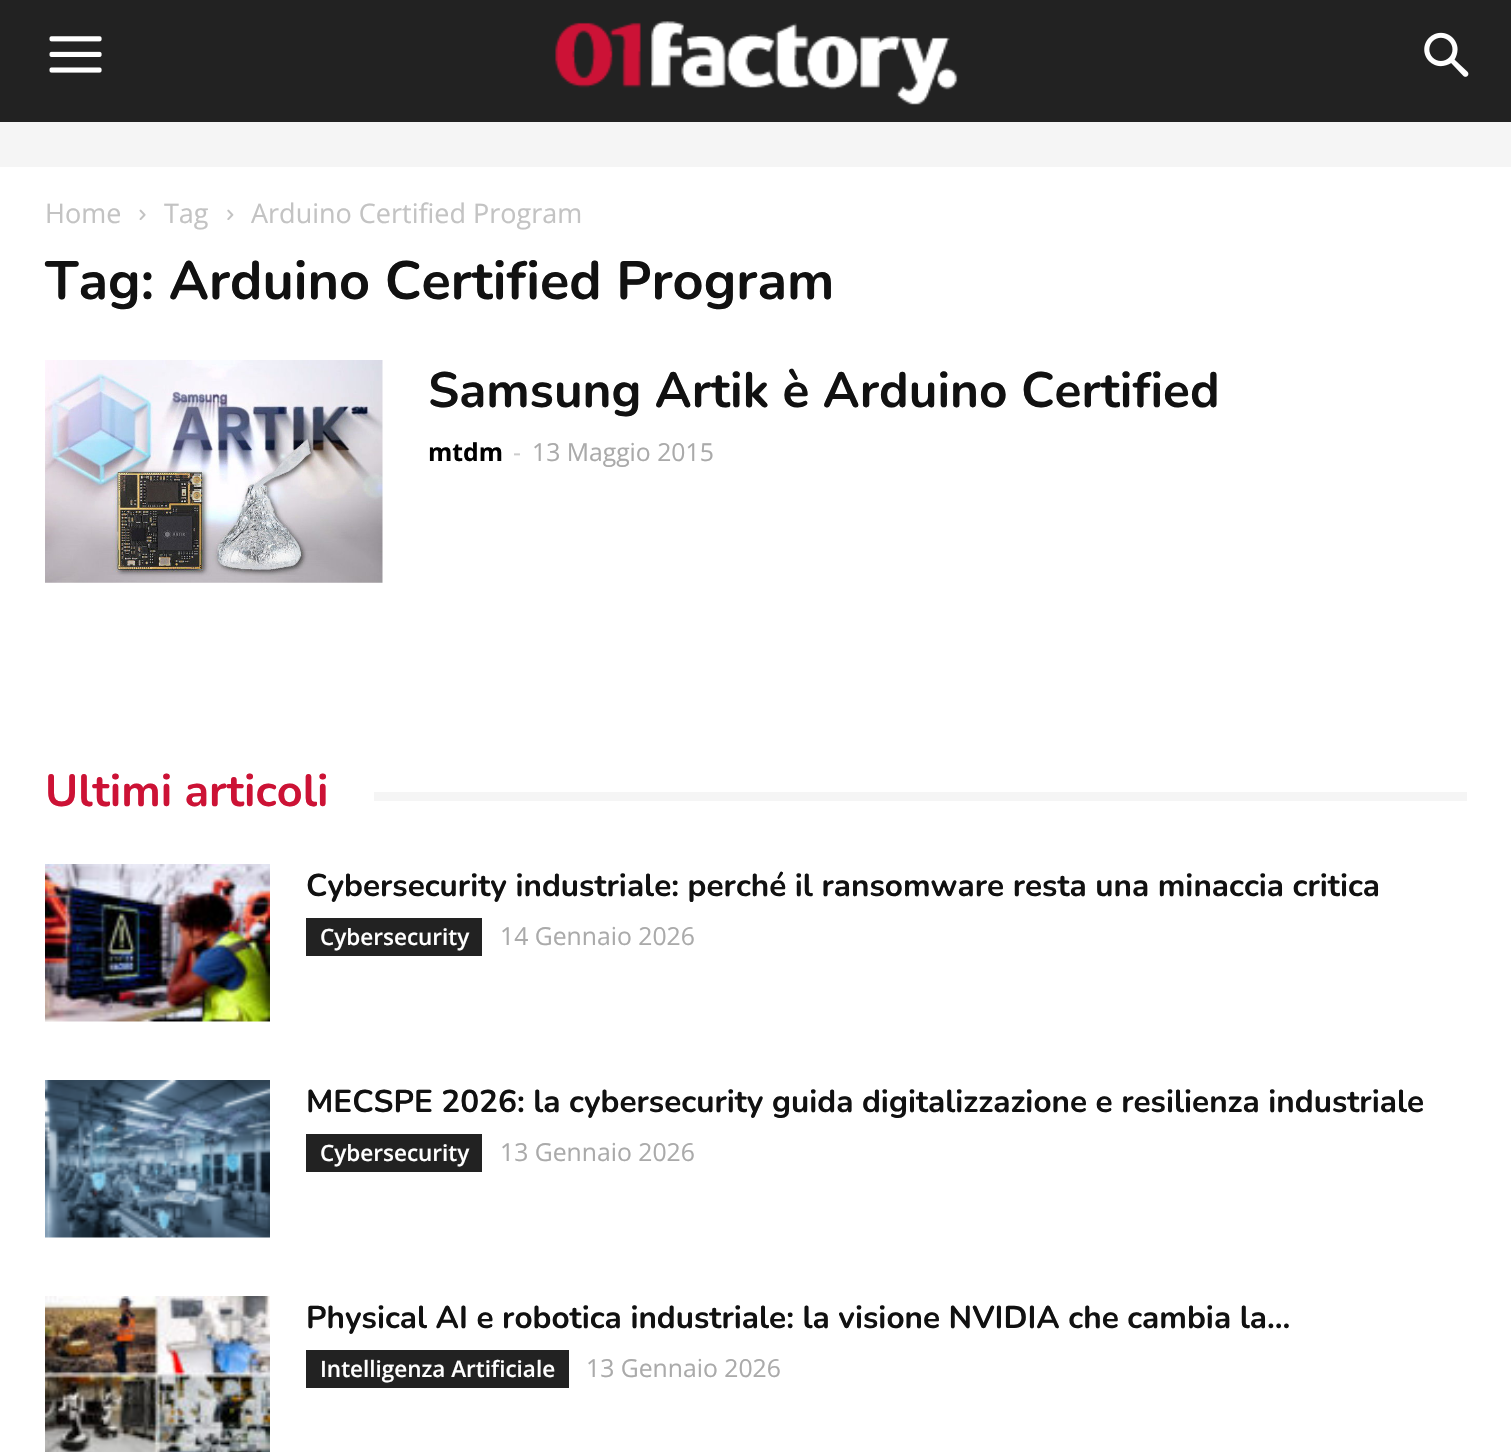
#include "include/core/SkBlurTypes.h"
#include "include/core/SkCanvas.h"
#include "include/core/SkData.h"
#include "include/core/SkFont.h"
#include "include/core/SkFontMgr.h"
#include "include/core/SkImage.h"
#include "include/core/SkMaskFilter.h"
#include "include/core/SkPaint.h"
#include "include/core/SkPathBuilder.h"
#include "include/core/SkTextBlob.h"
#include "include/effects/SkDashPathEffect.h"
#include "include/effects/SkGradientShader.h"
#include "include/utils/SkParsePath.h"

extern sk_sp<SkFontMgr> fontMgr;

void draw(SkCanvas* canvas) {
  SkPaint p;
  p.setAntiAlias(true);
  canvas->clear(SK_ColorWHITE);
  p.setColor(SkColorSetRGB(34, 34, 34));
  canvas->drawRect(SkRect::MakeLTRB(0, 0, 1511, 122), p);
  canvas->drawImageRect(SkImages::DeferredFromEncodedData(SkData::MakeFromFileName("images/1.png")), SkRect::MakeLTRB(49, 36, 102, 73), SkSamplingOptions());
  canvas->drawImageRect(SkImages::DeferredFromEncodedData(SkData::MakeFromFileName("images/2.png")), SkRect::MakeLTRB(555, 21, 958, 105), SkSamplingOptions());
  canvas->drawImageRect(SkImages::DeferredFromEncodedData(SkData::MakeFromFileName("images/3.png")), SkRect::MakeLTRB(1424, 32, 1469, 77), SkSamplingOptions());
  p.setColor(SkColorSetRGB(245, 245, 245));
  canvas->drawRect(SkRect::MakeLTRB(0, 122, 1511, 167), p);
  canvas->drawImageRect(SkImages::DeferredFromEncodedData(SkData::MakeFromFileName("images/4.png")), SkRect::MakeLTRB(139, 209, 146, 220), SkSamplingOptions());
  canvas->drawImageRect(SkImages::DeferredFromEncodedData(SkData::MakeFromFileName("images/5.png")), SkRect::MakeLTRB(227, 209, 234, 220), SkSamplingOptions());
  canvas->drawImageRect(SkImages::DeferredFromEncodedData(SkData::MakeFromFileName("images/6.png")), SkRect::MakeLTRB(45, 360, 383, 583), SkSamplingOptions());
  canvas->drawRect(SkRect::MakeLTRB(374, 792, 1467, 801), p);
  canvas->drawImageRect(SkImages::DeferredFromEncodedData(SkData::MakeFromFileName("images/7.png")), SkRect::MakeLTRB(45, 864, 270, 1022), SkSamplingOptions());
  p.setColor(SkColorSetRGB(34, 34, 34));
  canvas->drawRect(SkRect::MakeLTRB(306, 918, 482, 956), p);
  canvas->drawImageRect(SkImages::DeferredFromEncodedData(SkData::MakeFromFileName("images/8.png")), SkRect::MakeLTRB(45, 1080, 270, 1238), SkSamplingOptions());
  canvas->drawRect(SkRect::MakeLTRB(306, 1134, 482, 1172), p);
  canvas->drawImageRect(SkImages::DeferredFromEncodedData(SkData::MakeFromFileName("images/9.png")), SkRect::MakeLTRB(45, 1296, 270, 1452), SkSamplingOptions());
  canvas->drawRect(SkRect::MakeLTRB(306, 1350, 569, 1388), p);
  SkFont font1(fontMgr->matchFamilyStyle("Open Sans", SkFontStyle::Normal()), 27);
  font1.setSubpixel(true);
  p.setColor(SkColorSetRGB(195, 195, 195));
  canvas->drawString("Home", 45, 223, font1, p);
  canvas->drawString("Tag", 164, 223, font1, p);
  canvas->drawString("Arduino Certified Program", 251, 223, font1, p);
  SkFont font2(fontMgr->matchFamilyStyle("Nunito", SkFontStyle(200, SkFontStyle::kNormal_Width, SkFontStyle::kUpright_Slant)), 54);
  font2.setSubpixel(true);
  p.setColor(SkColorSetRGB(17, 17, 17));
  canvas->drawString("Tag: Arduino Certified Program", 45, 299, font2, p);
  SkFont font3(fontMgr->matchFamilyStyle("Nunito", SkFontStyle(200, SkFontStyle::kNormal_Width, SkFontStyle::kUpright_Slant)), 49.5f);
  font3.setSubpixel(true);
  canvas->drawString("Samsung Artik è Arduino Certified", 428, 407, font3, p);
  SkFont font4(fontMgr->matchFamilyStyle("Open Sans", SkFontStyle::Bold()), 24.75f);
  font4.setSubpixel(true);
  p.setColor(SK_ColorBLACK);
  canvas->drawString("mtdm", 428, 461, font4, p);
  SkFont font5(fontMgr->matchFamilyStyle("Open Sans", SkFontStyle::Normal()), 24.75f);
  font5.setSubpixel(true);
  p.setColor(SkColorSetRGB(204, 204, 204));
  canvas->drawString("-", 513, 461, font5, p);
  p.setColor(SkColorSetRGB(170, 170, 170));
  canvas->drawString("13 Maggio 2015", 532, 461, font5, p);
  SkFont font6(fontMgr->matchFamilyStyle("Nunito", SkFontStyle(200, SkFontStyle::kNormal_Width, SkFontStyle::kUpright_Slant)), 45);
  font6.setSubpixel(true);
  p.setColor(SkColorSetRGB(204, 18, 53));
  canvas->drawString("Ultimi articoli", 45, 806, font6, p);
  SkFont font7(fontMgr->matchFamilyStyle("Nunito", SkFontStyle(200, SkFontStyle::kNormal_Width, SkFontStyle::kUpright_Slant)), 31.5f);
  font7.setSubpixel(true);
  p.setColor(SkColorSetRGB(17, 17, 17));
  canvas->drawString("Cybersecurity industriale: perché il ransomware resta una minaccia critica", 306, 896, font7, p);
  SkFont font8(fontMgr->matchFamilyStyle("Open Sans", SkFontStyle(600, SkFontStyle::kNormal_Width, SkFontStyle::kUpright_Slant)), 22.5f);
  font8.setSubpixel(true);
  p.setColor(SK_ColorWHITE);
  canvas->drawString("Cybersecurity", 320, 945, font8, p);
  p.setColor(SkColorSetRGB(170, 170, 170));
  canvas->drawString("14 Gennaio 2026", 500, 945, font5, p);
  p.setColor(SkColorSetRGB(17, 17, 17));
  canvas->drawString("MECSPE 2026: la cybersecurity guida digitalizzazione e resilienza industriale", 306, 1112, font7, p);
  p.setColor(SK_ColorWHITE);
  canvas->drawString("Cybersecurity", 320, 1161, font8, p);
  p.setColor(SkColorSetRGB(170, 170, 170));
  canvas->drawString("13 Gennaio 2026", 500, 1161, font5, p);
  p.setColor(SkColorSetRGB(17, 17, 17));
  canvas->drawString("Physical AI e robotica industriale: la visione NVIDIA che cambia la...", 306, 1328, font7, p);
  p.setColor(SK_ColorWHITE);
  canvas->drawString("Intelligenza Artificiale", 320, 1377, font8, p);
  p.setColor(SkColorSetRGB(170, 170, 170));
  canvas->drawString("13 Gennaio 2026", 586, 1377, font5, p);
}
